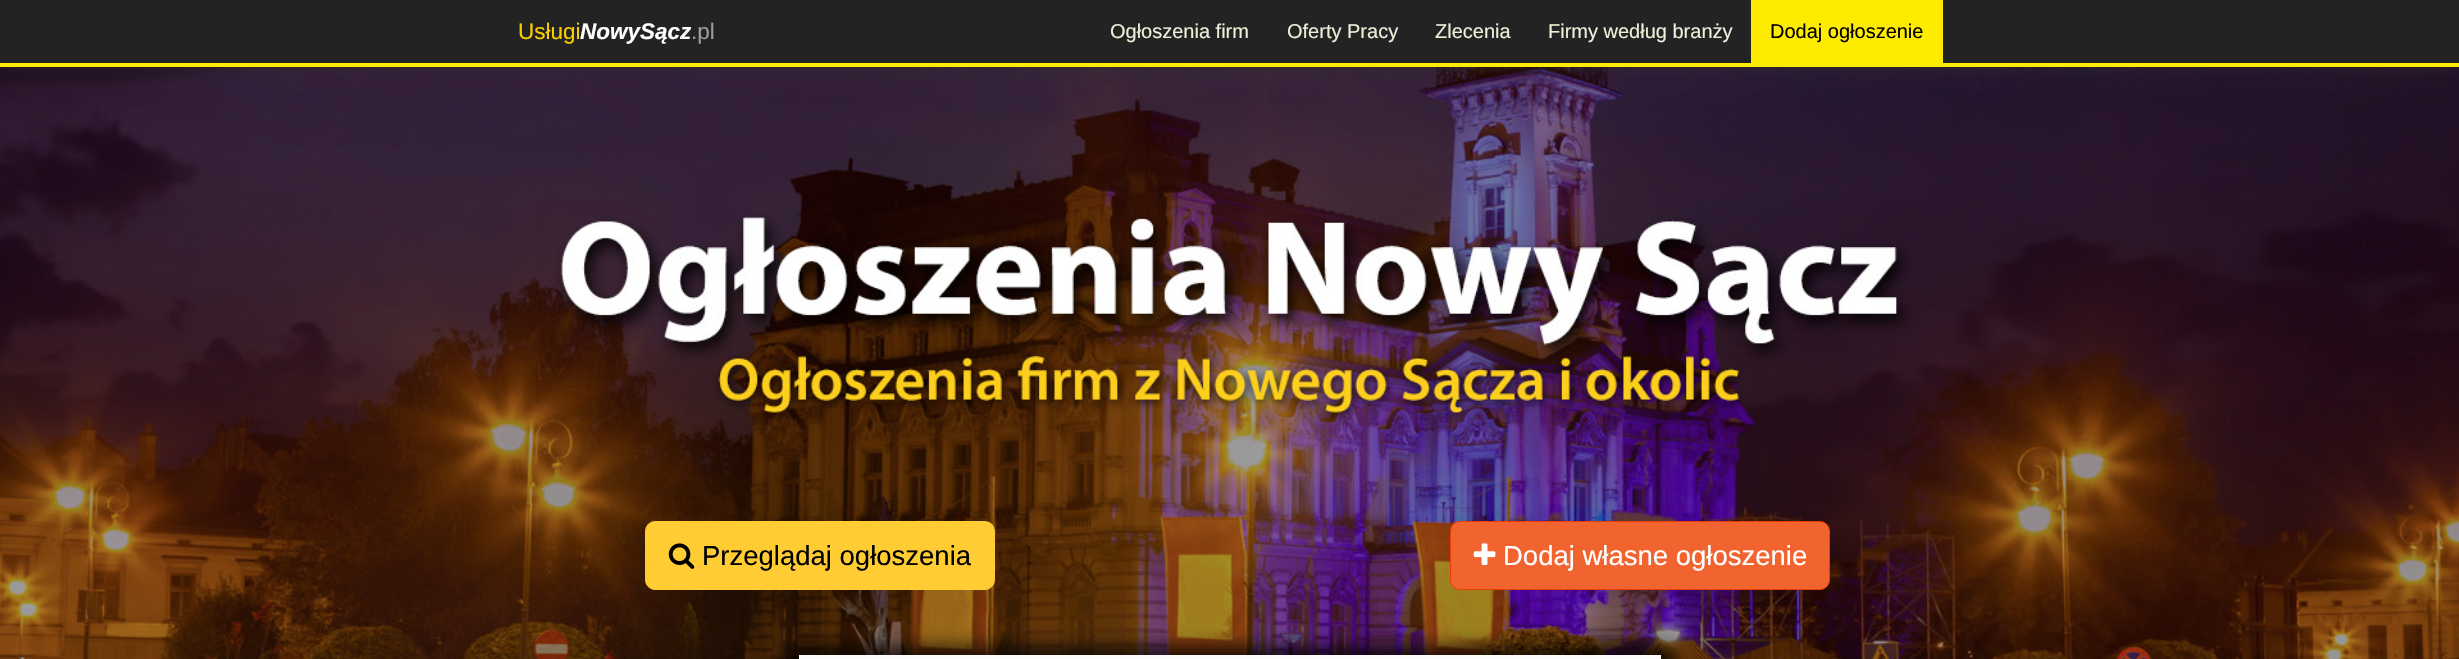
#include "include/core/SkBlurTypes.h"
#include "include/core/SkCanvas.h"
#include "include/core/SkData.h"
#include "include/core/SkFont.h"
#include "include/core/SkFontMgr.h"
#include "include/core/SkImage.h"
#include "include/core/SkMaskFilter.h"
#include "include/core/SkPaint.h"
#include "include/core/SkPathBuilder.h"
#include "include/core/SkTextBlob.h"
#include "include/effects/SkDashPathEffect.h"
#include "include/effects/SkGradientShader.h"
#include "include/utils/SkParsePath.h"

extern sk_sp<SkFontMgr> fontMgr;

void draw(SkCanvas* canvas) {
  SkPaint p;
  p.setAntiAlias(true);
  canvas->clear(SK_ColorWHITE);
  canvas->drawImageRect(SkImages::DeferredFromEncodedData(SkData::MakeFromFileName("images/1.png")), SkRect::MakeLTRB(0, 67, 2459, 659), SkSamplingOptions());
  p.setColor(SkColorSetARGB(191, 50, 50, 50));
  p.setMaskFilter(SkMaskFilter::MakeBlur(kNormal_SkBlurStyle, 8));
  canvas->drawRect(SkRect::MakeLTRB(0, 0, 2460, 66), p);
  p.setMaskFilter(nullptr);
  p.setColor(SkColorSetRGB(35, 35, 35));
  canvas->drawRect(SkRect::MakeLTRB(0, 0, 2459, 63), p);
  p.setColor(SkColorSetRGB(253, 235, 0));
  canvas->drawRect(SkRect::MakeLTRB(0, 63, 2459, 67), p);
  canvas->drawRect(SkRect::MakeLTRB(1751, 0, 1943, 63), p);
  p.setColor(SkColorSetRGB(255, 204, 51));
  canvas->drawRoundRect(SkRect::MakeLTRB(645.5f, 521.5f, 994.5f, 589.5f), 9.5f, 9.5f, p);
  p.setStyle(SkPaint::kStroke_Style);
  p.setStrokeWidth(1);
  canvas->drawRoundRect(SkRect::MakeLTRB(645.5f, 521.5f, 994.5f, 589.5f), 9.5f, 9.5f, p);
  canvas->drawImageRect(SkImages::DeferredFromEncodedData(SkData::MakeFromFileName("images/2.png")), SkRect::MakeLTRB(668, 543, 695, 569), SkSamplingOptions());
  p.setStyle(SkPaint::kFill_Style);
  p.setColor(SkColorSetRGB(242, 100, 47));
  canvas->drawRoundRect(SkRect::MakeLTRB(1450.5f, 521.5f, 1829.5f, 589.5f), 9.5f, 9.5f, p);
  p.setStyle(SkPaint::kStroke_Style);
  p.setColor(SkColorSetRGB(231, 63, 0));
  canvas->drawRoundRect(SkRect::MakeLTRB(1450.5f, 521.5f, 1829.5f, 589.5f), 9.5f, 9.5f, p);
  canvas->drawImageRect(SkImages::DeferredFromEncodedData(SkData::MakeFromFileName("images/3.png")), SkRect::MakeLTRB(1473, 543, 1496, 565), SkSamplingOptions());
  canvas->save();
  canvas->clipPath(SkPathBuilder(SkPathFillType::kEvenOdd).moveTo(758, 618).lineTo(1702, 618).lineTo(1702, 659).lineTo(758, 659).close().moveTo(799, 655).lineTo(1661, 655).lineTo(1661, 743).lineTo(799, 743).close().detach(), true);
  p.setStyle(SkPaint::kFill_Style);
  p.setColor(SkColorSetARGB(191, 0, 0, 0));
  p.setMaskFilter(SkMaskFilter::MakeBlur(kNormal_SkBlurStyle, 9));
  canvas->drawRect(SkRect::MakeLTRB(786, 646, 1674, 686), p);
  p.setMaskFilter(nullptr);
  canvas->restore();
  p.setColor(SkColorSetARGB(250, 255, 255, 255));
  canvas->drawRect(SkRect::MakeLTRB(799, 655, 1661, 659), p);
  SkFont font1(fontMgr->matchFamilyStyle("Liberation Sans", SkFontStyle::Normal()), 22.5f);
  font1.setSubpixel(true);
  p.setColor(SkColorSetRGB(249, 206, 0));
  canvas->drawString("Usługi", 518, 39, font1, p);
  SkFont font2(fontMgr->matchFamilyStyle("Liberation Sans", SkFontStyle::BoldItalic()), 22.5f);
  font2.setSubpixel(true);
  p.setColor(SK_ColorWHITE);
  canvas->drawString("NowySącz", 580, 39, font2, p);
  p.setColor(SkColorSetRGB(157, 157, 157));
  canvas->drawString(".pl", 691, 39, font1, p);
  SkFont font3(fontMgr->matchFamilyStyle("Liberation Sans", SkFontStyle::Normal()), 20);
  font3.setSubpixel(true);
  p.setColor(SkColorSetRGB(239, 238, 217));
  canvas->drawString("Ogłoszenia firm", 1110, 38, font3, p);
  canvas->drawString("Oferty Pracy", 1287, 38, font3, p);
  canvas->drawString("Zlecenia", 1435, 38, font3, p);
  canvas->drawString("Firmy według branży", 1548, 38, font3, p);
  p.setColor(SK_ColorBLACK);
  canvas->drawString("Dodaj ogłoszenie", 1770, 38, font3, p);
  SkFont font4(fontMgr->matchFamilyStyle("Liberation Sans", SkFontStyle::Normal()), 27.5f);
  font4.setSubpixel(true);
  canvas->drawString("Przeglądaj ogłoszenia", 702, 565, font4, p);
  p.setColor(SK_ColorWHITE);
  canvas->drawString("Dodaj własne ogłoszenie", 1503, 565, font4, p);
}
